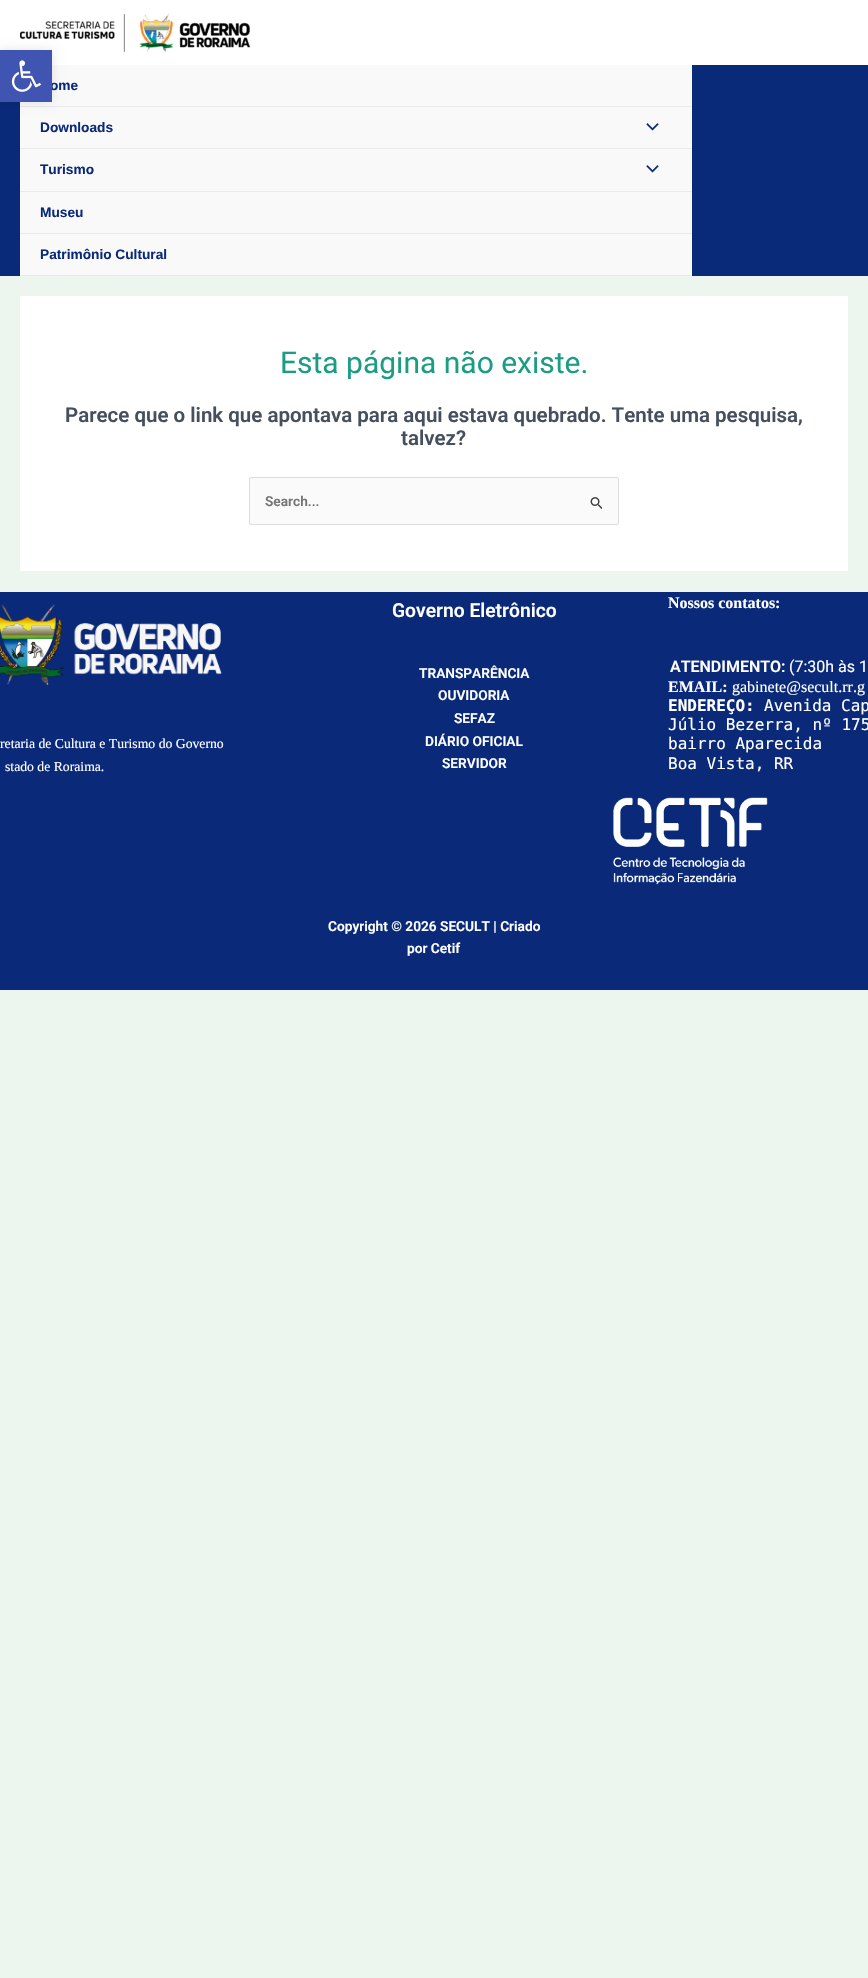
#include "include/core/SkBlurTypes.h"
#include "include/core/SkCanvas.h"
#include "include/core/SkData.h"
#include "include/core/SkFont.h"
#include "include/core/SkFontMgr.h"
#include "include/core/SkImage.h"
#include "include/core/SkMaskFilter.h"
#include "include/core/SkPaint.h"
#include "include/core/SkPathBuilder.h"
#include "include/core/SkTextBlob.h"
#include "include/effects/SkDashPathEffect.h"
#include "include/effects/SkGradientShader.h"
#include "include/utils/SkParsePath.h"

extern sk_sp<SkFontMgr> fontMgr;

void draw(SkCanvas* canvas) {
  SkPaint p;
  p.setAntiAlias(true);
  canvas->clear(SkColorSetRGB(237, 246, 238));
  p.setColor(SK_ColorWHITE);
  canvas->drawRect(SkRect::MakeLTRB(0, 0, 868, 65), p);
  canvas->drawImageRect(SkImages::DeferredFromEncodedData(SkData::MakeFromFileName("images/2.png")), SkRect::MakeLTRB(20, 14, 250, 52), SkSamplingOptions());
  p.setColor(SkColorSetRGB(9, 42, 121));
  canvas->drawRect(SkRect::MakeLTRB(0, 65, 868, 276), p);
  p.setColor(SkColorSetRGB(249, 249, 249));
  canvas->drawRect(SkRect::MakeLTRB(20, 65, 692, 275), p);
  p.setColor(SkColorSetRGB(234, 234, 234));
  canvas->drawRect(SkRect::MakeLTRB(20, 106, 692, 107), p);
  p.setColor(SkColorSetARGB(26, 0, 0, 0));
  p.setMaskFilter(SkMaskFilter::MakeBlur(kNormal_SkBlurStyle, 5));
  canvas->drawRect(SkRect::MakeLTRB(0, 50, 52, 102), p);
  p.setMaskFilter(nullptr);
  p.setColor(SkColorSetRGB(234, 234, 234));
  canvas->drawRect(SkRect::MakeLTRB(20, 148, 692, 149), p);
  canvas->drawImageRect(SkImages::DeferredFromEncodedData(SkData::MakeFromFileName("images/3.png")), SkRect::MakeLTRB(646, 123, 659, 131), SkSamplingOptions());
  canvas->drawRect(SkRect::MakeLTRB(20, 191, 692, 192), p);
  canvas->drawImageRect(SkImages::DeferredFromEncodedData(SkData::MakeFromFileName("images/3.png")), SkRect::MakeLTRB(646, 165, 659, 173), SkSamplingOptions());
  canvas->drawRect(SkRect::MakeLTRB(20, 233, 692, 234), p);
  canvas->drawRect(SkRect::MakeLTRB(20, 275, 692, 276), p);
  p.setColor(SK_ColorWHITE);
  canvas->drawRect(SkRect::MakeLTRB(20, 296, 848, 571), p);
  p.setColor(SkColorSetRGB(250, 250, 250));
  canvas->drawRoundRect(SkRect::MakeLTRB(249.5f, 477.5f, 618.5f, 524.5f), 1.5f, 1.5f, p);
  p.setStyle(SkPaint::kStroke_Style);
  p.setStrokeWidth(1);
  p.setColor(SkColorSetRGB(221, 221, 221));
  canvas->drawRoundRect(SkRect::MakeLTRB(249.5f, 477.5f, 618.5f, 524.5f), 1.5f, 1.5f, p);
  canvas->drawImageRect(SkImages::DeferredFromEncodedData(SkData::MakeFromFileName("images/4.png")), SkRect::MakeLTRB(590, 497, 602, 509), SkSamplingOptions());
  p.setStyle(SkPaint::kFill_Style);
  p.setColor(SkColorSetRGB(10, 42, 121));
  canvas->drawRect(SkRect::MakeLTRB(0, 592, 868, 990), p);
  canvas->drawImageRect(SkImages::DeferredFromEncodedData(SkData::MakeFromFileName("images/5.png")), SkRect::MakeLTRB(0, 604, 222, 686), SkSamplingOptions());
  canvas->drawImageRect(SkImages::DeferredFromEncodedData(SkData::MakeFromFileName("images/6.png")), SkRect::MakeLTRB(613, 797, 768, 885), SkSamplingOptions());
  SkFont font1(fontMgr->matchFamilyStyle("Liberation Sans", SkFontStyle::Bold()), 13.7f);
  font1.setSubpixel(true);
  canvas->drawString("ome", 50, 90, font1, p);
  p.setColor(SkColorSetRGB(64, 84, 178));
  canvas->drawRect(SkRect::MakeLTRB(0, 50, 52, 102), p);
  canvas->drawImageRect(SkImages::DeferredFromEncodedData(SkData::MakeFromFileName("images/1.png")), SkRect::MakeLTRB(11, 60, 41, 92), SkSamplingOptions());
  p.setColor(SkColorSetRGB(10, 42, 121));
  canvas->drawString("Downloads", 40, 132, font1, p);
  canvas->drawString("Turismo", 40, 174, font1, p);
  canvas->drawString("Museu", 40, 217, font1, p);
  canvas->drawString("Patrimônio Cultural", 40, 259, font1, p);
  SkFont font2(fontMgr->matchFamilyStyle("Roboto", SkFontStyle::Normal()), 30);
  font2.setSubpixel(true);
  p.setColor(SkColorSetRGB(27, 156, 133));
  canvas->drawString("Esta página não existe.", 280, 373, font2, p);
  SkFont font3(fontMgr->matchFamilyStyle("Roboto", SkFontStyle(600, SkFontStyle::kNormal_Width, SkFontStyle::kUpright_Slant)), 20.5f);
  font3.setSubpixel(true);
  p.setColor(SkColorSetRGB(69, 79, 94));
  canvas->drawString("Parece que o link que apontava para aqui estava quebrado. Tente uma pesquisa,", 65, 422, font3, p);
  canvas->drawString("talvez?", 401, 445, font3, p);
  SkFont font4(fontMgr->matchFamilyStyle("Roboto", SkFontStyle(600, SkFontStyle::kNormal_Width, SkFontStyle::kUpright_Slant)), 13.7f);
  font4.setSubpixel(true);
  p.setColor(SkColorSetRGB(117, 117, 117));
  canvas->drawString("Search...", 265, 506, font4, p);
  SkFont font5(fontMgr->matchFamilyStyle("Liberation Serif", SkFontStyle::Normal()), 13.7f);
  font5.setSubpixel(true);
  p.setColor(SK_ColorWHITE);
  canvas->drawString("retaria de Cultura e Turismo do Governo", 0, 748, font5, p);
  canvas->drawString("stado de Roraima.", 5, 771, font5, p);
  SkFont font6(fontMgr->matchFamilyStyle("Roboto", SkFontStyle(600, SkFontStyle::kNormal_Width, SkFontStyle::kUpright_Slant)), 19.25f);
  font6.setSubpixel(true);
  canvas->drawString("Governo Eletrônico", 392, 617, font6, p);
  canvas->drawString("TRANSPARÊNCIA", 419, 678, font4, p);
  canvas->drawString("OUVIDORIA", 438, 700, font4, p);
  canvas->drawString("SEFAZ", 454, 723, font4, p);
  canvas->drawString("DIÁRIO OFICIAL", 425, 746, font4, p);
  canvas->drawString("SERVIDOR", 442, 768, font4, p);
  SkFont font7(fontMgr->matchFamilyStyle("Liberation Serif", SkFontStyle::Bold()), 16);
  font7.setSubpixel(true);
  canvas->drawString("Nossos contatos:", 668, 608, font7, p);
  SkFont font8(fontMgr->matchFamilyStyle("Roboto", SkFontStyle(600, SkFontStyle::kNormal_Width, SkFontStyle::kUpright_Slant)), 16);
  font8.setSubpixel(true);
  canvas->drawString("ATENDIMENTO:", 670, 672, font8, p);
  SkFont font9(fontMgr->matchFamilyStyle("Roboto", SkFontStyle::Normal()), 16);
  font9.setSubpixel(true);
  canvas->drawString("(7:30h às 1", 789, 672, font9, p);
  canvas->drawString("EMAIL:", 668, 692, font7, p);
  SkFont font10(fontMgr->matchFamilyStyle("Liberation Serif", SkFontStyle::Normal()), 16);
  font10.setSubpixel(true);
  canvas->drawString("gabinete@secult.rr.g", 732, 692, font10, p);
  SkFont font11(fontMgr->matchFamilyStyle("DejaVu Sans Mono", SkFontStyle::Bold()), 16);
  font11.setSubpixel(true);
  canvas->drawString("ENDEREÇO:", 668, 711, font11, p);
  SkFont font12(fontMgr->matchFamilyStyle("DejaVu Sans Mono", SkFontStyle::Normal()), 16);
  font12.setSubpixel(true);
  canvas->drawString("Avenida Cap", 764, 711, font12, p);
  canvas->drawString("Júlio Bezerra, nº 175", 668, 730, font12, p);
  canvas->drawString("bairro Aparecida", 668, 749, font12, p);
  canvas->drawString("Boa Vista, RR", 668, 769, font12, p);
  canvas->drawString("Copyright © 2026 SECULT | Criado", 328, 931, font4, p);
  canvas->drawString("por Cetif", 407, 953, font4, p);
}
